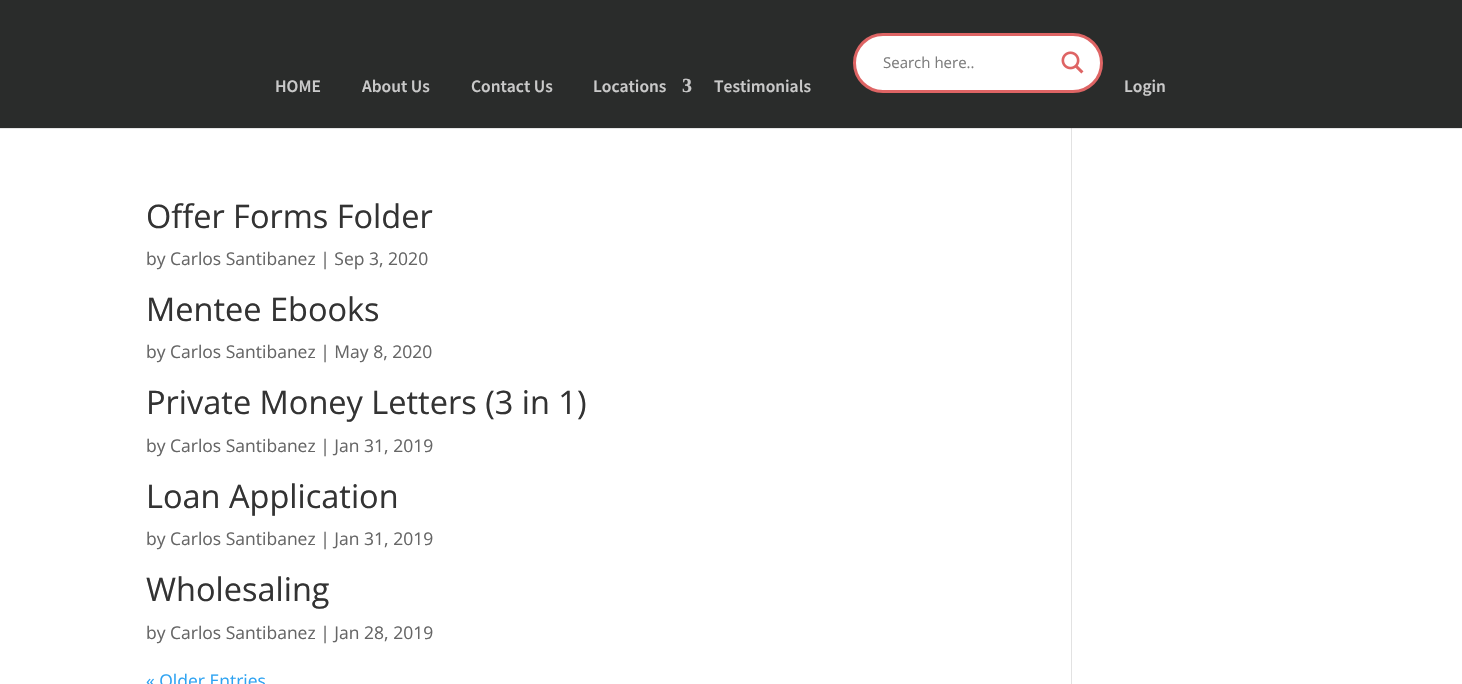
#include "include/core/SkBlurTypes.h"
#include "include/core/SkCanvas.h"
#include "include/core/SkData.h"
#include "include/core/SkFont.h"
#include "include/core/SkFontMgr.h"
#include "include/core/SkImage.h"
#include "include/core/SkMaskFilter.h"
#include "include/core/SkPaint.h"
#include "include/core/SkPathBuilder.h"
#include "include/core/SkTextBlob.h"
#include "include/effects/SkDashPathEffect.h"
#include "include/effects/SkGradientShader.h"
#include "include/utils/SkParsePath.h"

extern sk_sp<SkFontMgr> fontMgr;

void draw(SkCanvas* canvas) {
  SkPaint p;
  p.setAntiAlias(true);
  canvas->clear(SK_ColorWHITE);
  p.setColor(SkColorSetRGB(226, 226, 226));
  canvas->drawRect(SkRect::MakeLTRB(1071, 126, 1072, 684), p);
  p.setColor(SkColorSetARGB(26, 0, 0, 0));
  canvas->drawPath(SkPathBuilder().moveTo(0, 128).lineTo(0, 129).lineTo(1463, 129).lineTo(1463, 1).lineTo(1462, 1).lineTo(1462, 128).close().detach(), p);
  p.setColor(SkColorSetRGB(42, 44, 43));
  canvas->drawRect(SkRect::MakeLTRB(0, 0, 1462, 128), p);
  p.setColor(SK_ColorWHITE);
  canvas->drawRoundRect(SkRect::MakeLTRB(854.5f, 34.5f, 1101.5f, 91.5f), 28.5f, 28.5f, p);
  p.setStyle(SkPaint::kStroke_Style);
  p.setStrokeWidth(3);
  p.setColor(SkColorSetRGB(222, 100, 100));
  canvas->drawRoundRect(SkRect::MakeLTRB(854.5f, 34.5f, 1101.5f, 91.5f), 28.5f, 28.5f, p);
  canvas->drawImageRect(SkImages::DeferredFromEncodedData(SkData::MakeFromFileName("images/1.png")), SkRect::MakeLTRB(1061, 51, 1084, 74), SkSamplingOptions());
  SkFont font1(fontMgr->matchFamilyStyle("Open Sans", SkFontStyle::Normal()), 15);
  font1.setSubpixel(true);
  p.setStyle(SkPaint::kFill_Style);
  p.setColor(SkColorSetRGB(125, 125, 125));
  canvas->drawString("Search here..", 883, 68, font1, p);
  SkFont font2(fontMgr->matchFamilyStyle("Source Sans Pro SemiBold", SkFontStyle(600, SkFontStyle::kNormal_Width, SkFontStyle::kUpright_Slant)), 17.5f);
  font2.setSubpixel(true);
  p.setColor(SkColorSetRGB(201, 201, 201));
  canvas->drawString("HOME", 275, 92, font2, p);
  canvas->drawString("About Us", 362, 92, font2, p);
  canvas->drawString("Contact Us", 471, 92, font2, p);
  canvas->drawString("Locations", 593, 92, font2, p);
  SkFont font3(fontMgr->matchFamilyStyle("Liberation Serif", SkFontStyle::Bold()), 20);
  font3.setSubpixel(true);
  canvas->drawString("3", 682, 92, font3, p);
  canvas->drawString("Testimonials", 714, 92, font2, p);
  canvas->drawString("Login", 1124, 92, font2, p);
  SkFont font4(fontMgr->matchFamilyStyle("Open Sans", SkFontStyle::Normal()), 32.5f);
  font4.setSubpixel(true);
  p.setColor(SkColorSetRGB(51, 51, 51));
  canvas->drawString("Offer Forms Folder", 146, 228, font4, p);
  SkFont font5(fontMgr->matchFamilyStyle("Open Sans", SkFontStyle::Normal()), 17.5f);
  font5.setSubpixel(true);
  p.setColor(SkColorSetRGB(102, 102, 102));
  canvas->drawString("by Carlos Santibanez | Sep 3, 2020", 146, 265, font5, p);
  p.setColor(SkColorSetRGB(51, 51, 51));
  canvas->drawString("Mentee Ebooks", 146, 321, font4, p);
  p.setColor(SkColorSetRGB(102, 102, 102));
  canvas->drawString("by Carlos Santibanez | May 8, 2020", 146, 358, font5, p);
  p.setColor(SkColorSetRGB(51, 51, 51));
  canvas->drawString("Private Money Letters (3 in 1)", 146, 414, font4, p);
  p.setColor(SkColorSetRGB(102, 102, 102));
  canvas->drawString("by Carlos Santibanez | Jan 31, 2019", 146, 452, font5, p);
  p.setColor(SkColorSetRGB(51, 51, 51));
  canvas->drawString("Loan Application", 146, 508, font4, p);
  p.setColor(SkColorSetRGB(102, 102, 102));
  canvas->drawString("by Carlos Santibanez | Jan 31, 2019", 146, 545, font5, p);
  p.setColor(SkColorSetRGB(51, 51, 51));
  canvas->drawString("Wholesaling", 146, 601, font4, p);
  p.setColor(SkColorSetRGB(102, 102, 102));
  canvas->drawString("by Carlos Santibanez | Jan 28, 2019", 146, 639, font5, p);
  p.setColor(SkColorSetRGB(46, 163, 242));
  canvas->drawString("« Older Entries", 146, 687, font5, p);
}
